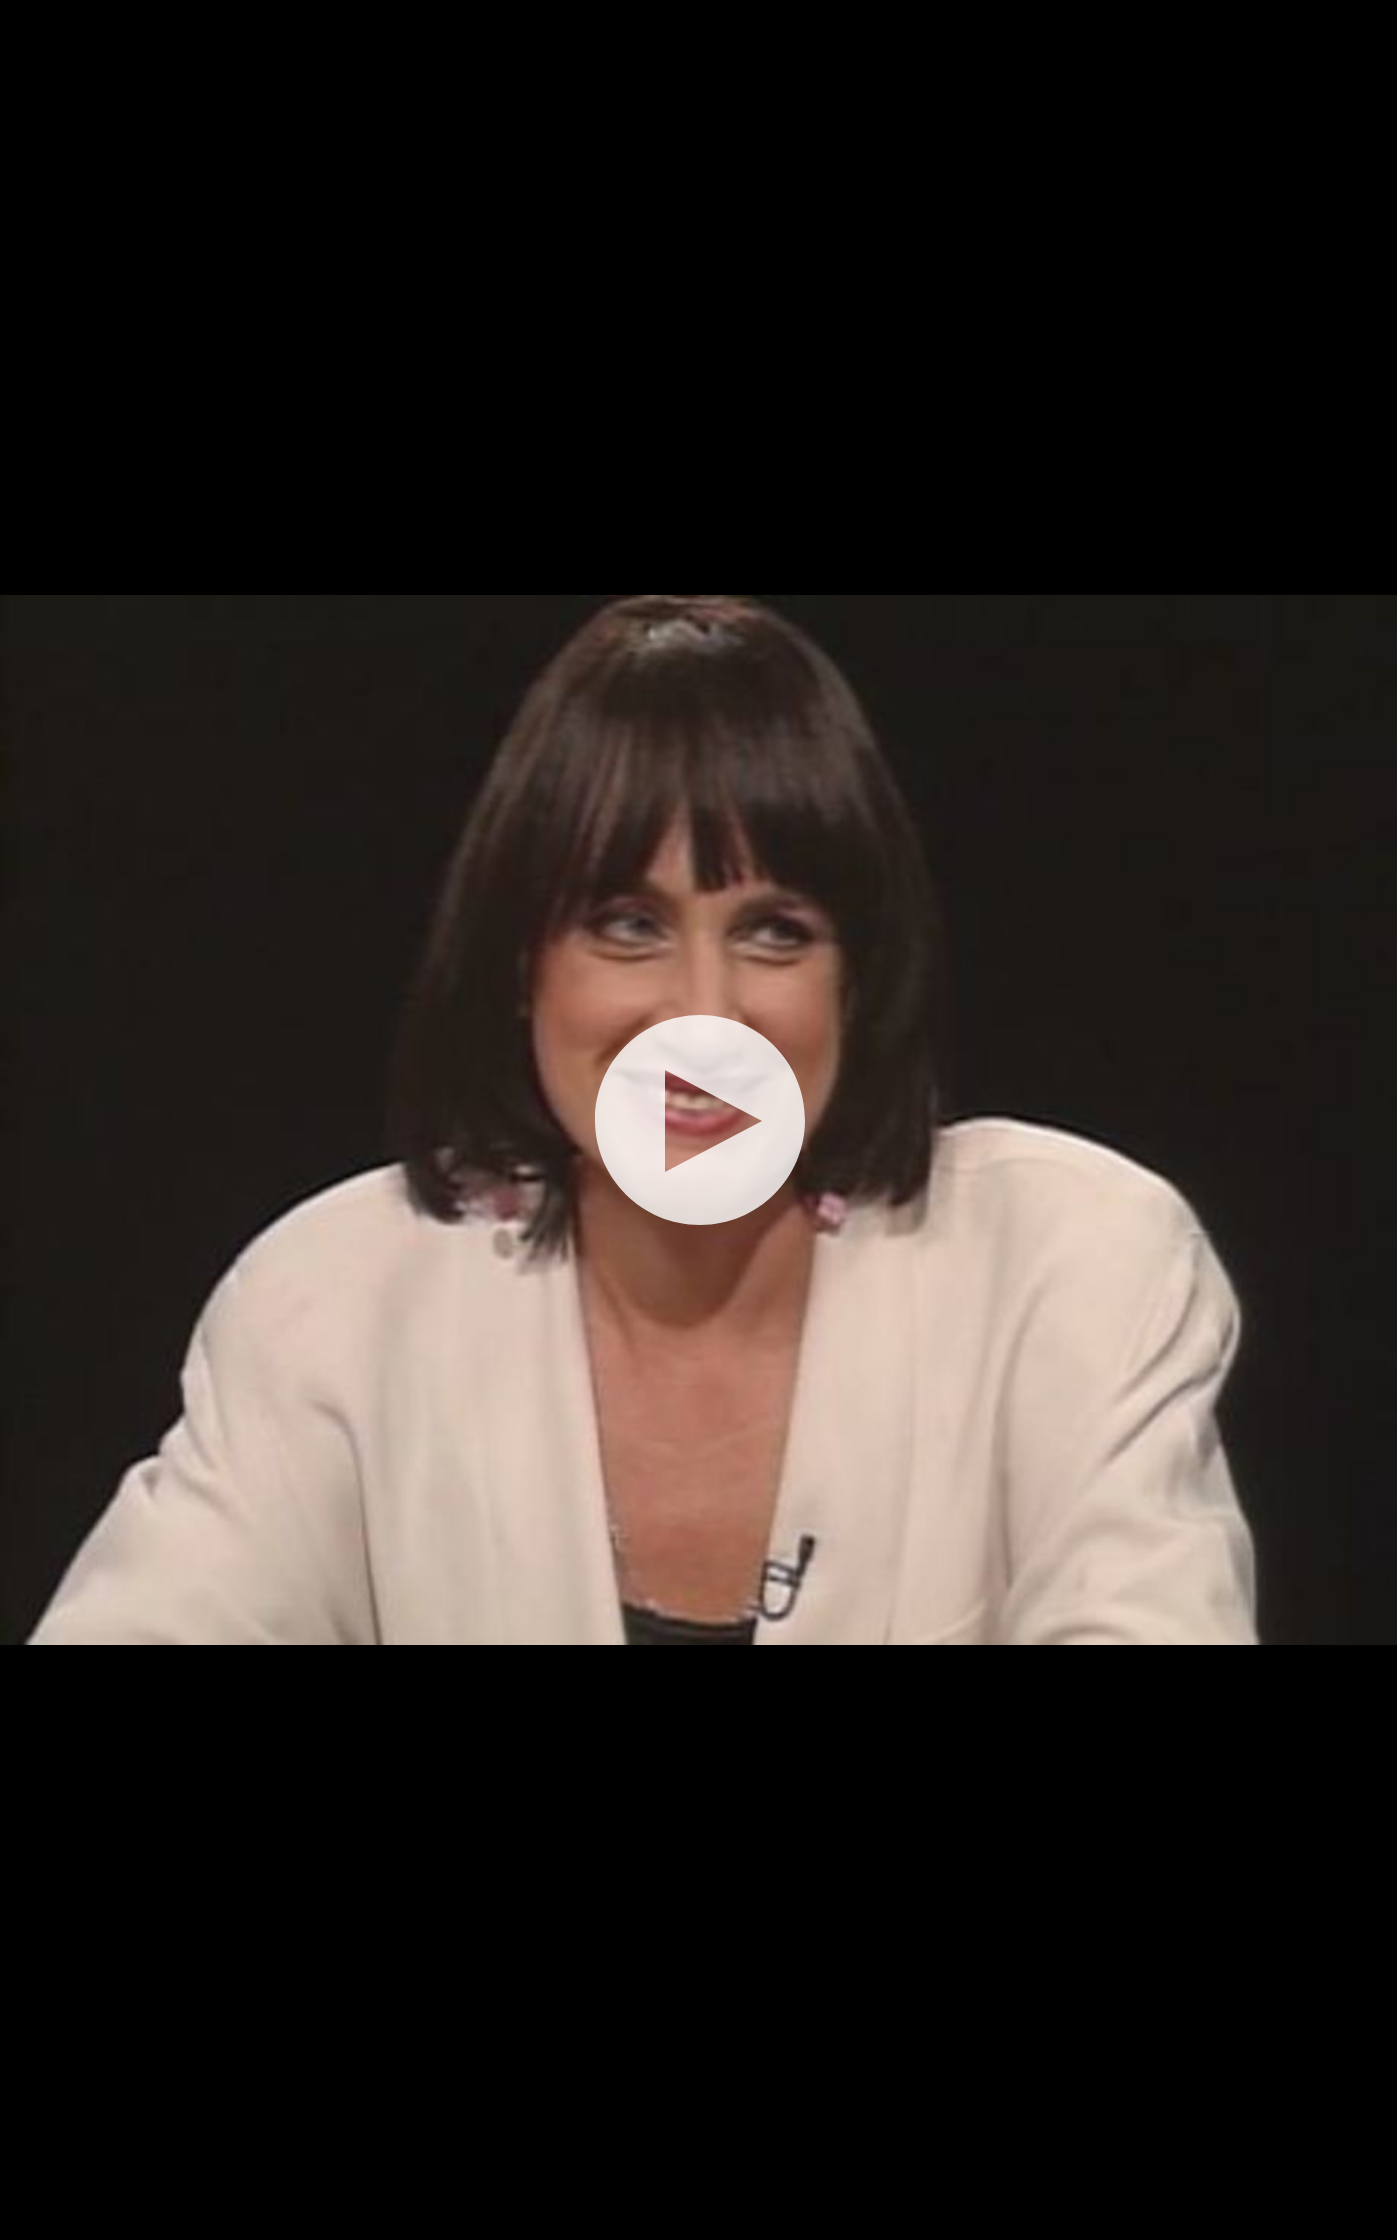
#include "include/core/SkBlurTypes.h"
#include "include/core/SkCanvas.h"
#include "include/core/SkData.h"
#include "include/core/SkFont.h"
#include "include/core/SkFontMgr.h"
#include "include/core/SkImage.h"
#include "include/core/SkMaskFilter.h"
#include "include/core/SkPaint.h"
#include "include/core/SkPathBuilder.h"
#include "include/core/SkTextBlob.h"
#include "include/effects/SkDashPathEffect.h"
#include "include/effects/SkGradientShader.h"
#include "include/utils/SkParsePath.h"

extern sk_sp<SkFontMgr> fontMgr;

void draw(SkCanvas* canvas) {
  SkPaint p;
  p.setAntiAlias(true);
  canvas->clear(SK_ColorBLACK);
  canvas->drawImageRect(SkImages::DeferredFromEncodedData(SkData::MakeFromFileName("images/1.png")), SkRect::MakeLTRB(0, 595, 1397, 1645), SkSamplingOptions());
  p.setColor(SkColorSetARGB(204, 255, 255, 255));
  canvas->drawPath(SkPathBuilder().moveTo(700, 1015).cubicTo(642, 1015, 595, 1062, 595, 1120).cubicTo(595, 1178, 642, 1225, 700, 1225).cubicTo(758, 1225, 805, 1178, 805, 1120).cubicTo(805, 1062, 758, 1015, 700, 1015).close().moveTo(665, 1172).lineTo(665, 1070).lineTo(762, 1121).close().detach(), p);
}
